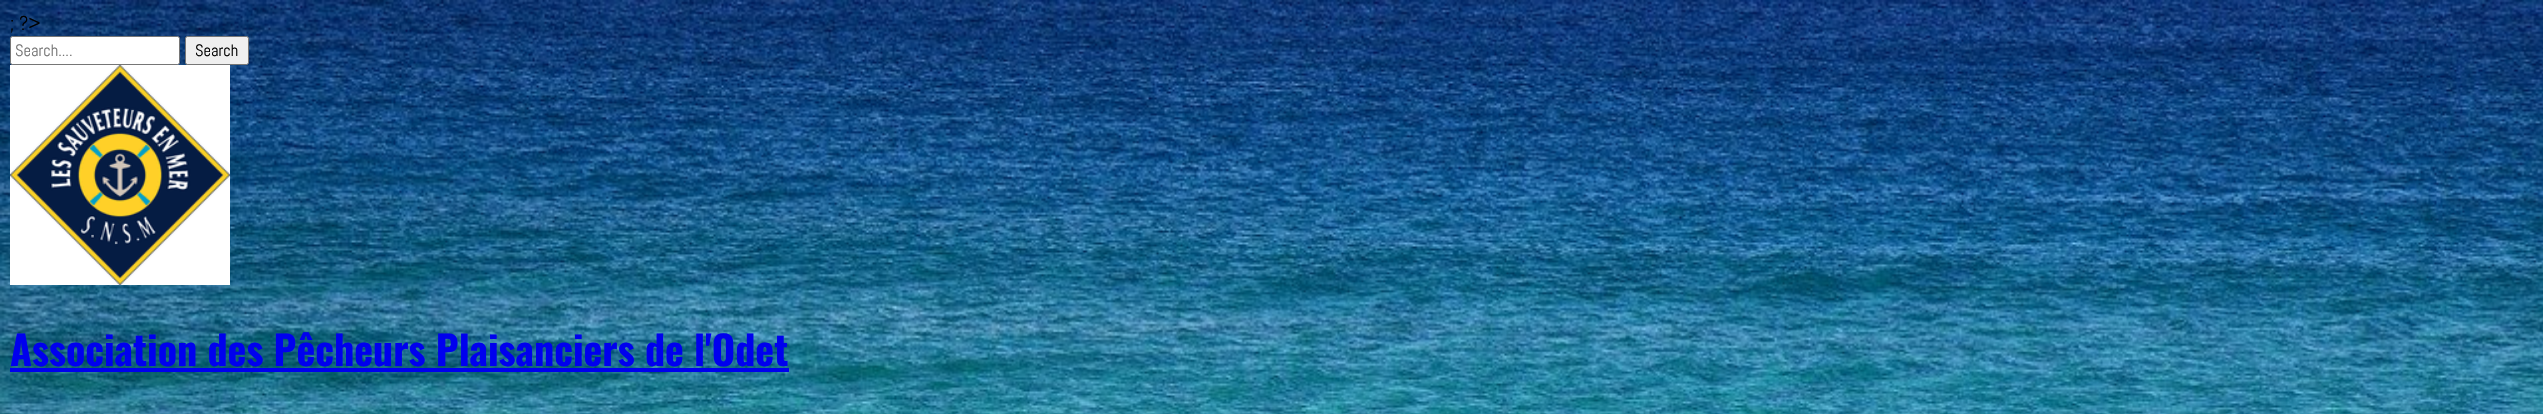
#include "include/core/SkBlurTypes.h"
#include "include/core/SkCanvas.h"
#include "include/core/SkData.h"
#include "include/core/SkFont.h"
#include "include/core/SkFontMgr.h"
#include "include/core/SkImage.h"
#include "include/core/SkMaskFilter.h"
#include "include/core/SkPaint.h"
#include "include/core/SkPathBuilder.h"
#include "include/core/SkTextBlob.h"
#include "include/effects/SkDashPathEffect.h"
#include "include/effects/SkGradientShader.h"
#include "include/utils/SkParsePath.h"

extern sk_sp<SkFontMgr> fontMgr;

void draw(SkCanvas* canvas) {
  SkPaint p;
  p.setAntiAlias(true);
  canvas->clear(SK_ColorWHITE);
  canvas->drawImageRect(SkImages::DeferredFromEncodedData(SkData::MakeFromFileName("images/1.png")), SkRect::MakeLTRB(0, 0, 2543, 414), SkSamplingOptions());
  p.setColor(SK_ColorWHITE);
  canvas->drawRoundRect(SkRect::MakeLTRB(10.5f, 36.5f, 179.5f, 64.5f), 2, 2, p);
  p.setStyle(SkPaint::kStroke_Style);
  p.setStrokeWidth(1);
  p.setColor(SkColorSetRGB(118, 118, 118));
  canvas->drawRoundRect(SkRect::MakeLTRB(10.5f, 36.5f, 179.5f, 64.5f), 2, 2, p);
  p.setStyle(SkPaint::kFill_Style);
  p.setColor(SkColorSetRGB(239, 239, 239));
  canvas->drawRoundRect(SkRect::MakeLTRB(185.5f, 36.5f, 248.5f, 64.5f), 2, 2, p);
  p.setStyle(SkPaint::kStroke_Style);
  p.setColor(SkColorSetRGB(118, 118, 118));
  canvas->drawRoundRect(SkRect::MakeLTRB(185.5f, 36.5f, 248.5f, 64.5f), 2, 2, p);
  canvas->drawImageRect(SkImages::DeferredFromEncodedData(SkData::MakeFromFileName("images/2.png")), SkRect::MakeLTRB(10, 65, 230, 285), SkSamplingOptions());
  p.setStyle(SkPaint::kFill_Style);
  p.setColor(SkColorSetRGB(0, 0, 238));
  canvas->drawRect(SkRect::MakeLTRB(10, 368, 789, 372), p);
  SkFont font1(fontMgr->matchFamilyStyle("Abel", SkFontStyle::Normal()), 20);
  font1.setSubpixel(true);
  p.setColor(SK_ColorBLACK);
  canvas->drawString("; ?>", 10, 30, font1, p);
  SkFont font2(fontMgr->matchFamilyStyle("Abel", SkFontStyle::Normal()), 16.5f);
  font2.setSubpixel(true);
  p.setColor(SkColorSetRGB(117, 117, 117));
  canvas->drawString("Search....", 15, 56, font2, p);
  p.setColor(SK_ColorBLACK);
  canvas->drawString("Search", 195, 56, font2, p);
  SkFont font3(fontMgr->matchFamilyStyle("Oswald", SkFontStyle::Bold()), 40);
  font3.setSubpixel(true);
  p.setColor(SkColorSetRGB(0, 0, 238));
  canvas->drawString("Association des Pêcheurs Plaisanciers de l'Odet", 10, 366, font3, p);
}
